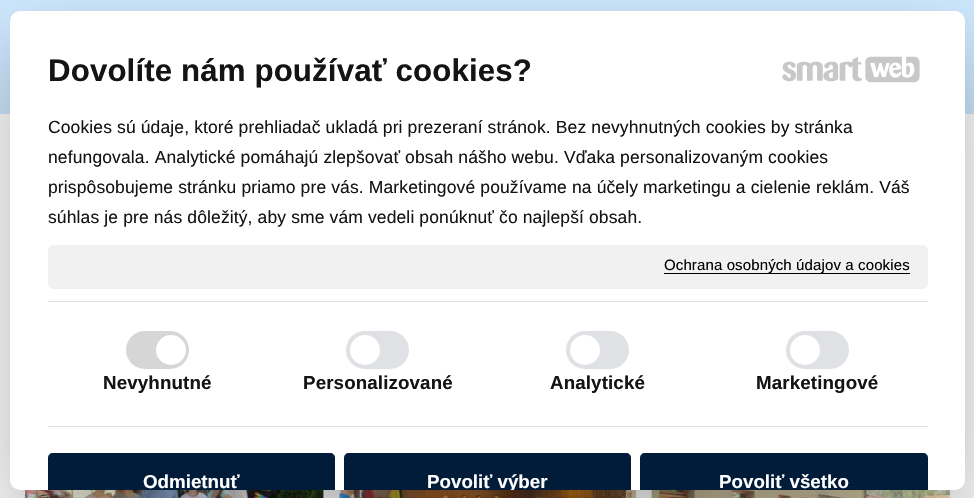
#include "include/core/SkBlurTypes.h"
#include "include/core/SkCanvas.h"
#include "include/core/SkData.h"
#include "include/core/SkFont.h"
#include "include/core/SkFontMgr.h"
#include "include/core/SkImage.h"
#include "include/core/SkMaskFilter.h"
#include "include/core/SkPaint.h"
#include "include/core/SkPathBuilder.h"
#include "include/core/SkTextBlob.h"
#include "include/effects/SkDashPathEffect.h"
#include "include/effects/SkGradientShader.h"
#include "include/utils/SkParsePath.h"

extern sk_sp<SkFontMgr> fontMgr;

void draw(SkCanvas* canvas) {
  SkPaint p;
  p.setAntiAlias(true);
  auto spacedText = [&](const char* s, float x, float y, const SkFont& font, const SkPaint& ink, float letter, float word) {
    std::vector<SkGlyphID> glyphs(font.countText(s, strlen(s), SkTextEncoding::kUTF8));
    std::vector<float> xs(glyphs.size());
    font.textToGlyphs(s, strlen(s), SkTextEncoding::kUTF8, glyphs);
    font.getXPos(glyphs, xs, x);
    float extra = 0;
    for (size_t i = 0; i < glyphs.size(); i++) {
      xs[i] += extra;
      extra += letter + word * (glyphs[i] == font.unicharToGlyph(' '));
    }
    canvas->drawTextBlob(SkTextBlob::MakeFromPosHGlyphs(glyphs, xs, y, font), 0, 0, ink);
  };
  canvas->clear(SK_ColorWHITE);
  canvas->drawImageRect(SkImages::DeferredFromEncodedData(SkData::MakeFromFileName("images/1.png")), SkRect::MakeLTRB(323, 490, 652, 498), SkSamplingOptions());
  p.setColor(SkColorSetRGB(206, 232, 255));
  canvas->drawRect(SkRect::MakeLTRB(0, 0, 974, 114), p);
  canvas->drawImageRect(SkImages::DeferredFromEncodedData(SkData::MakeFromFileName("images/4.png")), SkRect::MakeLTRB(25, 490, 324, 498), SkSamplingOptions());
  canvas->drawImageRect(SkImages::DeferredFromEncodedData(SkData::MakeFromFileName("images/5.png")), SkRect::MakeLTRB(338, 490, 637, 498), SkSamplingOptions());
  canvas->drawImageRect(SkImages::DeferredFromEncodedData(SkData::MakeFromFileName("images/6.png")), SkRect::MakeLTRB(651, 490, 950, 498), SkSamplingOptions());
  p.setColor(SkColorSetARGB(77, 0, 0, 0));
  p.setMaskFilter(SkMaskFilter::MakeBlur(kNormal_SkBlurStyle, 42.5f));
  canvas->drawRoundRect(SkRect::MakeLTRB(10, 51, 965, 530), 10, 10, p);
  p.setMaskFilter(nullptr);
  p.setColor(SK_ColorWHITE);
  canvas->drawRoundRect(SkRect::MakeLTRB(10, 11, 965, 490), 10, 10, p);
  canvas->drawImageRect(SkImages::DeferredFromEncodedData(SkData::MakeFromFileName("images/2.png")), SkRect::MakeLTRB(782, 57, 862, 82), SkSamplingOptions());
  canvas->drawImageRect(SkImages::DeferredFromEncodedData(SkData::MakeFromFileName("images/3.png")), SkRect::MakeLTRB(865, 56, 920, 83), SkSamplingOptions());
  p.setColor(SkColorSetRGB(241, 241, 241));
  canvas->drawRoundRect(SkRect::MakeLTRB(48, 245, 928, 289), 6, 6, p);
  p.setColor(SK_ColorBLACK);
  canvas->drawRect(SkRect::MakeLTRB(664, 273, 910, 274), p);
  p.setColor(SkColorSetRGB(221, 221, 221));
  canvas->drawRect(SkRect::MakeLTRB(48, 301, 928, 302), p);
  canvas->drawRect(SkRect::MakeLTRB(48, 426, 928, 427), p);
  p.setColor(SkColorSetRGB(214, 214, 214));
  canvas->drawRoundRect(SkRect::MakeLTRB(126, 331, 189, 369), 19, 19, p);
  p.setColor(SK_ColorWHITE);
  canvas->drawCircle(171, 350, 15, p);
  p.setColor(SkColorSetRGB(223, 225, 228));
  canvas->drawRoundRect(SkRect::MakeLTRB(346, 331, 409, 369), 19, 19, p);
  p.setColor(SK_ColorWHITE);
  canvas->drawCircle(365, 350, 15, p);
  p.setColor(SkColorSetRGB(223, 225, 228));
  canvas->drawRoundRect(SkRect::MakeLTRB(566, 331, 629, 369), 19, 19, p);
  p.setColor(SK_ColorWHITE);
  canvas->drawCircle(585, 350, 15, p);
  p.setColor(SkColorSetRGB(223, 225, 228));
  canvas->drawRoundRect(SkRect::MakeLTRB(786, 331, 849, 369), 19, 19, p);
  p.setColor(SK_ColorWHITE);
  canvas->drawCircle(805, 350, 15, p);
  p.setColor(SkColorSetRGB(1, 28, 56));
  canvas->drawPath(SkPathBuilder().moveTo(53, 453).lineTo(330, 453).cubicTo(333, 453, 335, 455, 335, 458).lineTo(335, 490).lineTo(48, 490).lineTo(48, 458).cubicTo(48, 455, 50, 453, 53, 453).close().detach(), p);
  canvas->drawPath(SkPathBuilder().moveTo(349, 453).lineTo(626, 453).cubicTo(629, 453, 631, 455, 631, 458).lineTo(631, 490).lineTo(344, 490).lineTo(344, 458).cubicTo(344, 455, 346, 453, 349, 453).close().detach(), p);
  canvas->drawPath(SkPathBuilder().moveTo(645, 453).lineTo(923, 453).cubicTo(926, 453, 928, 455, 928, 458).lineTo(928, 490).lineTo(640, 490).lineTo(640, 458).cubicTo(640, 455, 642, 453, 645, 453).close().detach(), p);
  SkFont font1(fontMgr->matchFamilyStyle("Liberation Sans", SkFontStyle::Bold()), 31.25f);
  font1.setSubpixel(true);
  p.setColor(SkColorSetRGB(20, 20, 20));
  spacedText("Dovolíte nám používať cookies?", 48, 81, font1, p, 0.12f, 0);
  SkFont font2(fontMgr->matchFamilyStyle("Liberation Sans", SkFontStyle::Normal()), 17.5f);
  font2.setSubpixel(true);
  spacedText("Cookies sú údaje, ktoré prehliadač ukladá pri prezeraní stránok. Bez nevyhnutných cookies by stránka", 48, 133, font2, p, 0.12f, 0);
  spacedText("nefungovala. Analytické pomáhajú zlepšovať obsah nášho webu. Vďaka personalizovaným cookies", 48, 163, font2, p, 0.12f, 0);
  spacedText("prispôsobujeme stránku priamo pre vás. Marketingové používame na účely marketingu a cielenie reklám. Váš", 48, 193, font2, p, 0.12f, 0);
  spacedText("súhlas je pre nás dôležitý, aby sme vám vedeli ponúknuť čo najlepší obsah.", 48, 223, font2, p, 0.12f, 0);
  SkFont font3(fontMgr->matchFamilyStyle("Liberation Sans", SkFontStyle::Normal()), 15);
  font3.setSubpixel(true);
  p.setColor(SK_ColorBLACK);
  spacedText("Ochrana osobných údajov a cookies", 664, 270, font3, p, 0.12f, 0);
  SkFont font4(fontMgr->matchFamilyStyle("Liberation Sans", SkFontStyle::Bold()), 18.75f);
  font4.setSubpixel(true);
  p.setColor(SkColorSetRGB(20, 20, 20));
  spacedText("Nevyhnutné", 103, 389, font4, p, 0.12f, 0);
  spacedText("Personalizované", 303, 389, font4, p, 0.12f, 0);
  spacedText("Analytické", 550, 389, font4, p, 0.12f, 0);
  spacedText("Marketingové", 756, 389, font4, p, 0.12f, 0);
  p.setColor(SK_ColorWHITE);
  canvas->drawString("Odmietnuť", 143, 488, font4, p);
  canvas->save();
  canvas->clipPath(SkPathBuilder().moveTo(20, 11).lineTo(955, 11).cubicTo(960.5f, 11, 965, 15.5f, 965, 21).lineTo(965, 480).cubicTo(965, 485.5f, 960.5f, 490, 955, 490).lineTo(20, 490).cubicTo(14.5f, 490, 10, 485.5f, 10, 480).lineTo(10, 21).cubicTo(10, 15.5f, 14.5f, 11, 20, 11).close().detach(), true);
  canvas->drawString("Povoliť výber", 427, 488, font4, p);
  canvas->restore();
  canvas->drawString("Povoliť všetko", 719, 488, font4, p);
}
